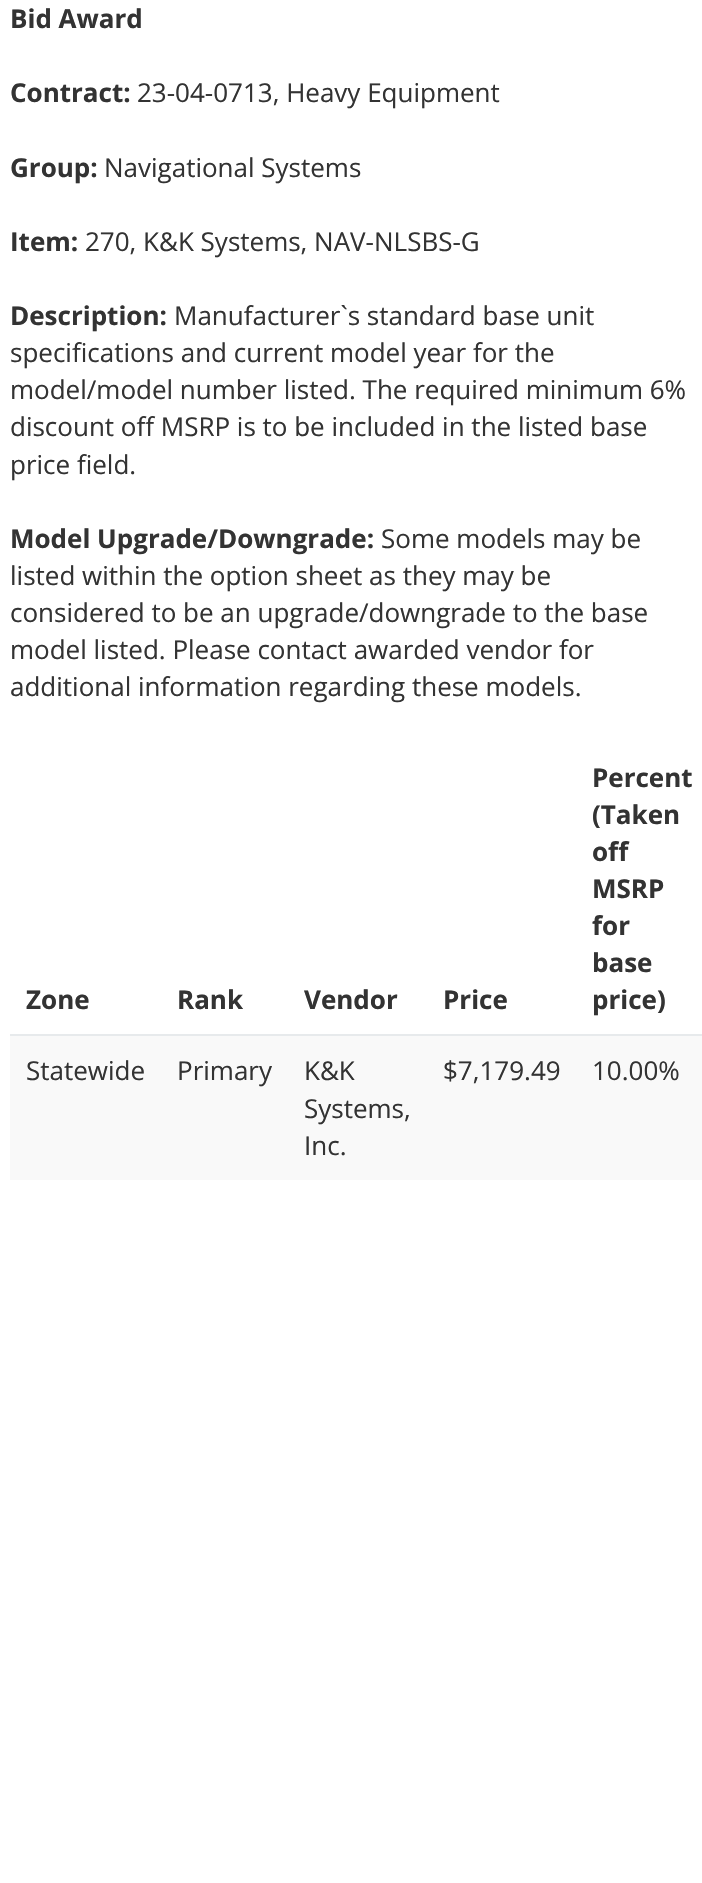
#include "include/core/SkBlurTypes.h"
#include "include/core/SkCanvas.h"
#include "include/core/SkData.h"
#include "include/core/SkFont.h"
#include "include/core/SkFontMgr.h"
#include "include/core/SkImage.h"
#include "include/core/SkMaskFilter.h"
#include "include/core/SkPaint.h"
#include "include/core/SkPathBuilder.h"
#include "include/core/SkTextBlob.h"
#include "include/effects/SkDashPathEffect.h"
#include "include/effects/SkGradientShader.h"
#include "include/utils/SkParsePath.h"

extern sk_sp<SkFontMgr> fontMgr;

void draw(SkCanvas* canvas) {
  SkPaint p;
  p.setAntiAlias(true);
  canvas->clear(SK_ColorWHITE);
  p.setColor(SkColorSetRGB(249, 249, 249));
  canvas->drawRect(SkRect::MakeLTRB(10, 1036, 702, 1180), p);
  p.setColor(SkColorSetRGB(231, 234, 236));
  canvas->drawRect(SkRect::MakeLTRB(10, 1034, 702, 1036), p);
  SkFont font1(fontMgr->matchFamilyStyle("Open Sans", SkFontStyle::Bold()), 26);
  font1.setSubpixel(true);
  p.setColor(SkColorSetRGB(51, 51, 51));
  canvas->drawString("Bid Award", 10, 28, font1, p);
  canvas->drawString("Contract:", 10, 102, font1, p);
  SkFont font2(fontMgr->matchFamilyStyle("Open Sans", SkFontStyle::Normal()), 26);
  font2.setSubpixel(true);
  canvas->drawString("23-04-0713, Heavy Equipment", 137, 102, font2, p);
  canvas->drawString("Group:", 10, 177, font1, p);
  canvas->drawString("Navigational Systems", 104, 177, font2, p);
  canvas->drawString("Item:", 10, 251, font1, p);
  canvas->drawString("270, K&K Systems, NAV-NLSBS-G", 85, 251, font2, p);
  canvas->drawString("Description:", 10, 325, font1, p);
  canvas->drawString("Manufacturer`s standard base unit", 174, 325, font2, p);
  canvas->drawString("specifications and current model year for the", 10, 362, font2, p);
  canvas->drawString("model/model number listed. The required minimum 6%", 10, 399, font2, p);
  canvas->drawString("discount off MSRP is to be included in the listed base", 10, 436, font2, p);
  canvas->drawString("price field.", 10, 474, font2, p);
  canvas->drawString("Model Upgrade/Downgrade:", 10, 548, font1, p);
  canvas->drawString("Some models may be", 381, 548, font2, p);
  canvas->drawString("listed within the option sheet as they may be", 10, 585, font2, p);
  canvas->drawString("considered to be an upgrade/downgrade to the base", 10, 622, font2, p);
  canvas->drawString("model listed. Please contact awarded vendor for", 10, 659, font2, p);
  canvas->drawString("additional information regarding these models.", 10, 696, font2, p);
  canvas->drawString("Zone", 26, 1009, font1, p);
  canvas->drawString("Rank", 177, 1009, font1, p);
  canvas->drawString("Vendor", 304, 1009, font1, p);
  canvas->drawString("Price", 443, 1009, font1, p);
  canvas->drawString("Percent", 592, 787, font1, p);
  canvas->drawString("(Taken", 592, 824, font1, p);
  canvas->drawString("off", 592, 861, font1, p);
  canvas->drawString("MSRP", 592, 898, font1, p);
  canvas->drawString("for", 592, 935, font1, p);
  canvas->drawString("base", 592, 972, font1, p);
  canvas->drawString("price)", 592, 1009, font1, p);
  canvas->drawString("Statewide", 26, 1080, font2, p);
  canvas->drawString("Primary", 177, 1080, font2, p);
  canvas->drawString("K&K", 304, 1080, font2, p);
  canvas->drawString("Systems,", 304, 1118, font2, p);
  canvas->drawString("Inc.", 304, 1155, font2, p);
  canvas->drawString("$7,179.49", 443, 1080, font2, p);
  canvas->drawString("10.00%", 592, 1080, font2, p);
}
